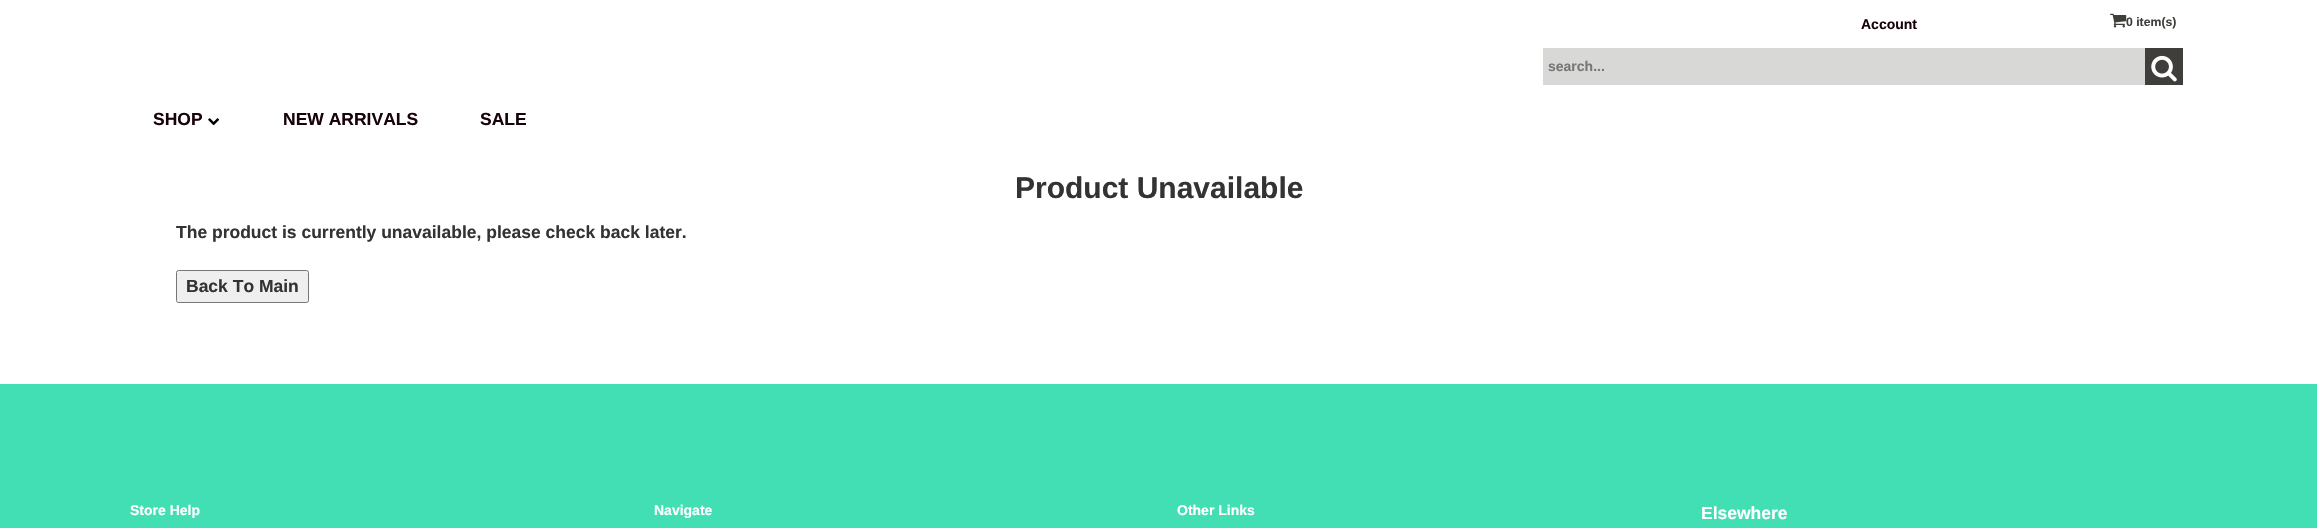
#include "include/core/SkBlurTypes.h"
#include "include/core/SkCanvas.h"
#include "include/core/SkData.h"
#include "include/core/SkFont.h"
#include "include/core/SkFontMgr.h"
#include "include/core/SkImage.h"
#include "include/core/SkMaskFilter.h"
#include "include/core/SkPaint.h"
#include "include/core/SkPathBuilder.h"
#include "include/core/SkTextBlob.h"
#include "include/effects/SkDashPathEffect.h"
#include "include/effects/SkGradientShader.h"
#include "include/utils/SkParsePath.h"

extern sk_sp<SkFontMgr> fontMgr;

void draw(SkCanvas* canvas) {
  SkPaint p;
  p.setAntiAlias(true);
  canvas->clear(SK_ColorWHITE);
  canvas->drawImageRect(SkImages::DeferredFromEncodedData(SkData::MakeFromFileName("images/1.png")), SkRect::MakeLTRB(2110, 13, 2127, 28), SkSamplingOptions());
  p.setColor(SkColorSetRGB(216, 216, 215));
  canvas->drawRect(SkRect::MakeLTRB(1543, 48, 2145, 85), p);
  p.setColor(SkColorSetRGB(64, 62, 59));
  canvas->drawRect(SkRect::MakeLTRB(2145, 48, 2183, 85), p);
  canvas->drawImageRect(SkImages::DeferredFromEncodedData(SkData::MakeFromFileName("images/2.png")), SkRect::MakeLTRB(2151, 55, 2177, 82), SkSamplingOptions());
  canvas->drawImageRect(SkImages::DeferredFromEncodedData(SkData::MakeFromFileName("images/3.png")), SkRect::MakeLTRB(208, 118, 220, 126), SkSamplingOptions());
  p.setColor(SkColorSetRGB(239, 239, 239));
  canvas->drawRoundRect(SkRect::MakeLTRB(176.5f, 270.5f, 308.5f, 302.5f), 2, 2, p);
  p.setStyle(SkPaint::kStroke_Style);
  p.setStrokeWidth(1);
  p.setColor(SkColorSetRGB(118, 118, 118));
  canvas->drawRoundRect(SkRect::MakeLTRB(176.5f, 270.5f, 308.5f, 302.5f), 2, 2, p);
  p.setStyle(SkPaint::kFill_Style);
  p.setColor(SkColorSetRGB(66, 223, 181));
  canvas->drawRect(SkRect::MakeLTRB(0, 384, 2317, 528), p);
  SkFont font1(fontMgr->matchFamilyStyle("Liberation Sans", SkFontStyle::Bold()), 14);
  font1.setSubpixel(true);
  p.setColor(SkColorSetRGB(24, 3, 9));
  canvas->drawString("Account", 1861, 29, font1, p);
  SkFont font2(fontMgr->matchFamilyStyle("Liberation Sans", SkFontStyle::Bold()), 12.25f);
  font2.setSubpixel(true);
  p.setColor(SkColorSetRGB(64, 62, 59));
  canvas->drawString("0 item(s)", 2126, 26, font2, p);
  p.setColor(SkColorSetRGB(119, 119, 119));
  canvas->drawString("search...", 1548, 71, font1, p);
  SkFont font3(fontMgr->matchFamilyStyle("Liberation Sans", SkFontStyle::Bold()), 17.5f);
  font3.setSubpixel(true);
  p.setColor(SkColorSetRGB(24, 3, 9));
  canvas->drawString("SHOP", 153, 125, font3, p);
  canvas->drawString("NEW ARRIVALS", 283, 125, font3, p);
  canvas->drawString("SALE", 480, 125, font3, p);
  SkFont font4(fontMgr->matchFamilyStyle("Liberation Sans", SkFontStyle::Bold()), 30);
  font4.setSubpixel(true);
  p.setColor(SkColorSetRGB(51, 51, 51));
  canvas->drawString("Product Unavailable", 1015, 198, font4, p);
  canvas->drawString("The product is currently unavailable, please check back later.", 176, 238, font3, p);
  canvas->drawString("Back To Main", 186, 292, font3, p);
  p.setColor(SK_ColorWHITE);
  canvas->drawString("Store Help", 130, 515, font1, p);
  canvas->drawString("Navigate", 654, 515, font1, p);
  canvas->drawString("Other Links", 1177, 515, font1, p);
  canvas->drawString("Elsewhere", 1701, 519, font3, p);
}
